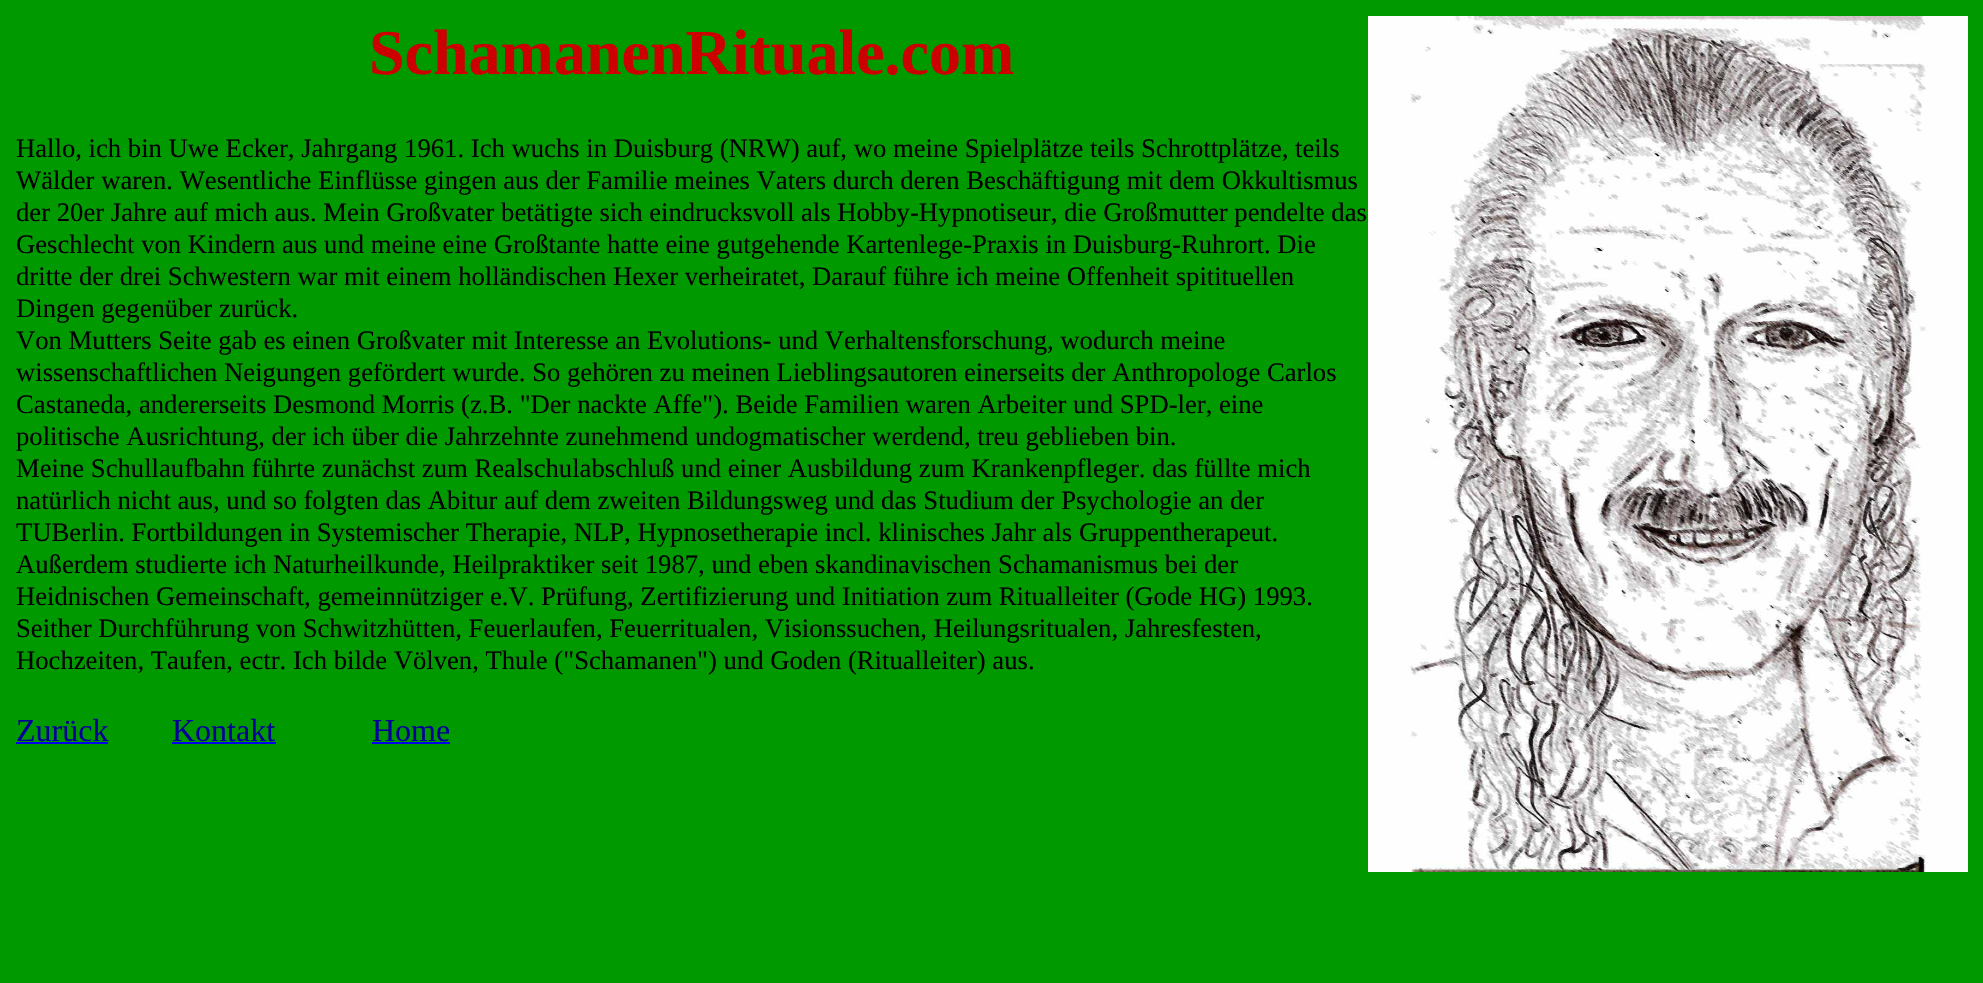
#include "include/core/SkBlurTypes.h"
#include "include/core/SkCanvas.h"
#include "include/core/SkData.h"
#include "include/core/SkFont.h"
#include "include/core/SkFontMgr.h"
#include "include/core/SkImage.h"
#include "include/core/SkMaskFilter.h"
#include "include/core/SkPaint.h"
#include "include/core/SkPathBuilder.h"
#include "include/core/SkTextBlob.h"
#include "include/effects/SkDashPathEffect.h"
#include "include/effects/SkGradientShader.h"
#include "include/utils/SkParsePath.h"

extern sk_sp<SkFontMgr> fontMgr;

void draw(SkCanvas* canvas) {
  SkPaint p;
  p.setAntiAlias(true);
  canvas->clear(SkColorSetRGB(0, 153, 0));
  canvas->drawImageRect(SkImages::DeferredFromEncodedData(SkData::MakeFromFileName("images/1.png")), SkRect::MakeLTRB(1368, 16, 1968, 872), SkSamplingOptions());
  p.setColor(SkColorSetRGB(0, 0, 238));
  canvas->drawRect(SkRect::MakeLTRB(16, 742, 108, 744), p);
  canvas->drawRect(SkRect::MakeLTRB(172, 742, 276, 744), p);
  canvas->drawRect(SkRect::MakeLTRB(372, 742, 450, 744), p);
  SkFont font1(fontMgr->matchFamilyStyle("Liberation Serif", SkFontStyle::Bold()), 64);
  font1.setSubpixel(true);
  p.setColor(SkColorSetRGB(204, 0, 0));
  canvas->drawString("SchamanenRituale.com", 369, 74, font1, p);
  SkFont font2(fontMgr->matchFamilyStyle("Liberation Serif", SkFontStyle::Normal()), 26.67f);
  font2.setSubpixel(true);
  p.setColor(SK_ColorBLACK);
  canvas->drawString("Hallo, ich bin Uwe Ecker, Jahrgang 1961. Ich wuchs in Duisburg (NRW) auf, wo meine Spielplätze teils Schrottplätze, teils", 16, 157, font2, p);
  canvas->drawString("Wälder waren. Wesentliche Einflüsse gingen aus der Familie meines Vaters durch deren Beschäftigung mit dem Okkultismus", 16, 189, font2, p);
  canvas->drawString("der 20er Jahre auf mich aus. Mein Großvater betätigte sich eindrucksvoll als Hobby-Hypnotiseur, die Großmutter pendelte das", 16, 221, font2, p);
  canvas->drawString("Geschlecht von Kindern aus und meine eine Großtante hatte eine gutgehende Kartenlege-Praxis in Duisburg-Ruhrort. Die", 16, 253, font2, p);
  canvas->drawString("dritte der drei Schwestern war mit einem holländischen Hexer verheiratet, Darauf führe ich meine Offenheit spitituellen", 16, 285, font2, p);
  canvas->drawString("Dingen gegenüber zurück.", 16, 317, font2, p);
  canvas->drawString("Von Mutters Seite gab es einen Großvater mit Interesse an Evolutions- und Verhaltensforschung, wodurch meine", 16, 349, font2, p);
  canvas->drawString("wissenschaftlichen Neigungen gefördert wurde. So gehören zu meinen Lieblingsautoren einerseits der Anthropologe Carlos", 16, 381, font2, p);
  canvas->drawString("Castaneda, andererseits Desmond Morris (z.B. \"Der nackte Affe\"). Beide Familien waren Arbeiter und SPD-ler, eine", 16, 413, font2, p);
  canvas->drawString("politische Ausrichtung, der ich über die Jahrzehnte zunehmend undogmatischer werdend, treu geblieben bin.", 16, 445, font2, p);
  canvas->drawString("Meine Schullaufbahn führte zunächst zum Realschulabschluß und einer Ausbildung zum Krankenpfleger. das füllte mich", 16, 477, font2, p);
  canvas->drawString("natürlich nicht aus, und so folgten das Abitur auf dem zweiten Bildungsweg und das Studium der Psychologie an der", 16, 509, font2, p);
  canvas->drawString("TUBerlin. Fortbildungen in Systemischer Therapie, NLP, Hypnosetherapie incl. klinisches Jahr als Gruppentherapeut.", 16, 541, font2, p);
  canvas->drawString("Außerdem studierte ich Naturheilkunde, Heilpraktiker seit 1987, und eben skandinavischen Schamanismus bei der", 16, 573, font2, p);
  canvas->drawString("Heidnischen Gemeinschaft, gemeinnütziger e.V. Prüfung, Zertifizierung und Initiation zum Ritualleiter (Gode HG) 1993.", 16, 605, font2, p);
  canvas->drawString("Seither Durchführung von Schwitzhütten, Feuerlaufen, Feuerritualen, Visionssuchen, Heilungsritualen, Jahresfesten,", 16, 637, font2, p);
  canvas->drawString("Hochzeiten, Taufen, ectr. Ich bilde Völven, Thule (\"Schamanen\") und Goden (Ritualleiter) aus.", 16, 669, font2, p);
  SkFont font3(fontMgr->matchFamilyStyle("Liberation Serif", SkFontStyle::Normal()), 32);
  font3.setSubpixel(true);
  p.setColor(SkColorSetRGB(0, 0, 153));
  canvas->drawString("Zurück", 16, 741, font3, p);
  canvas->drawString("Kontakt", 172, 741, font3, p);
  canvas->drawString("Home", 372, 741, font3, p);
}
